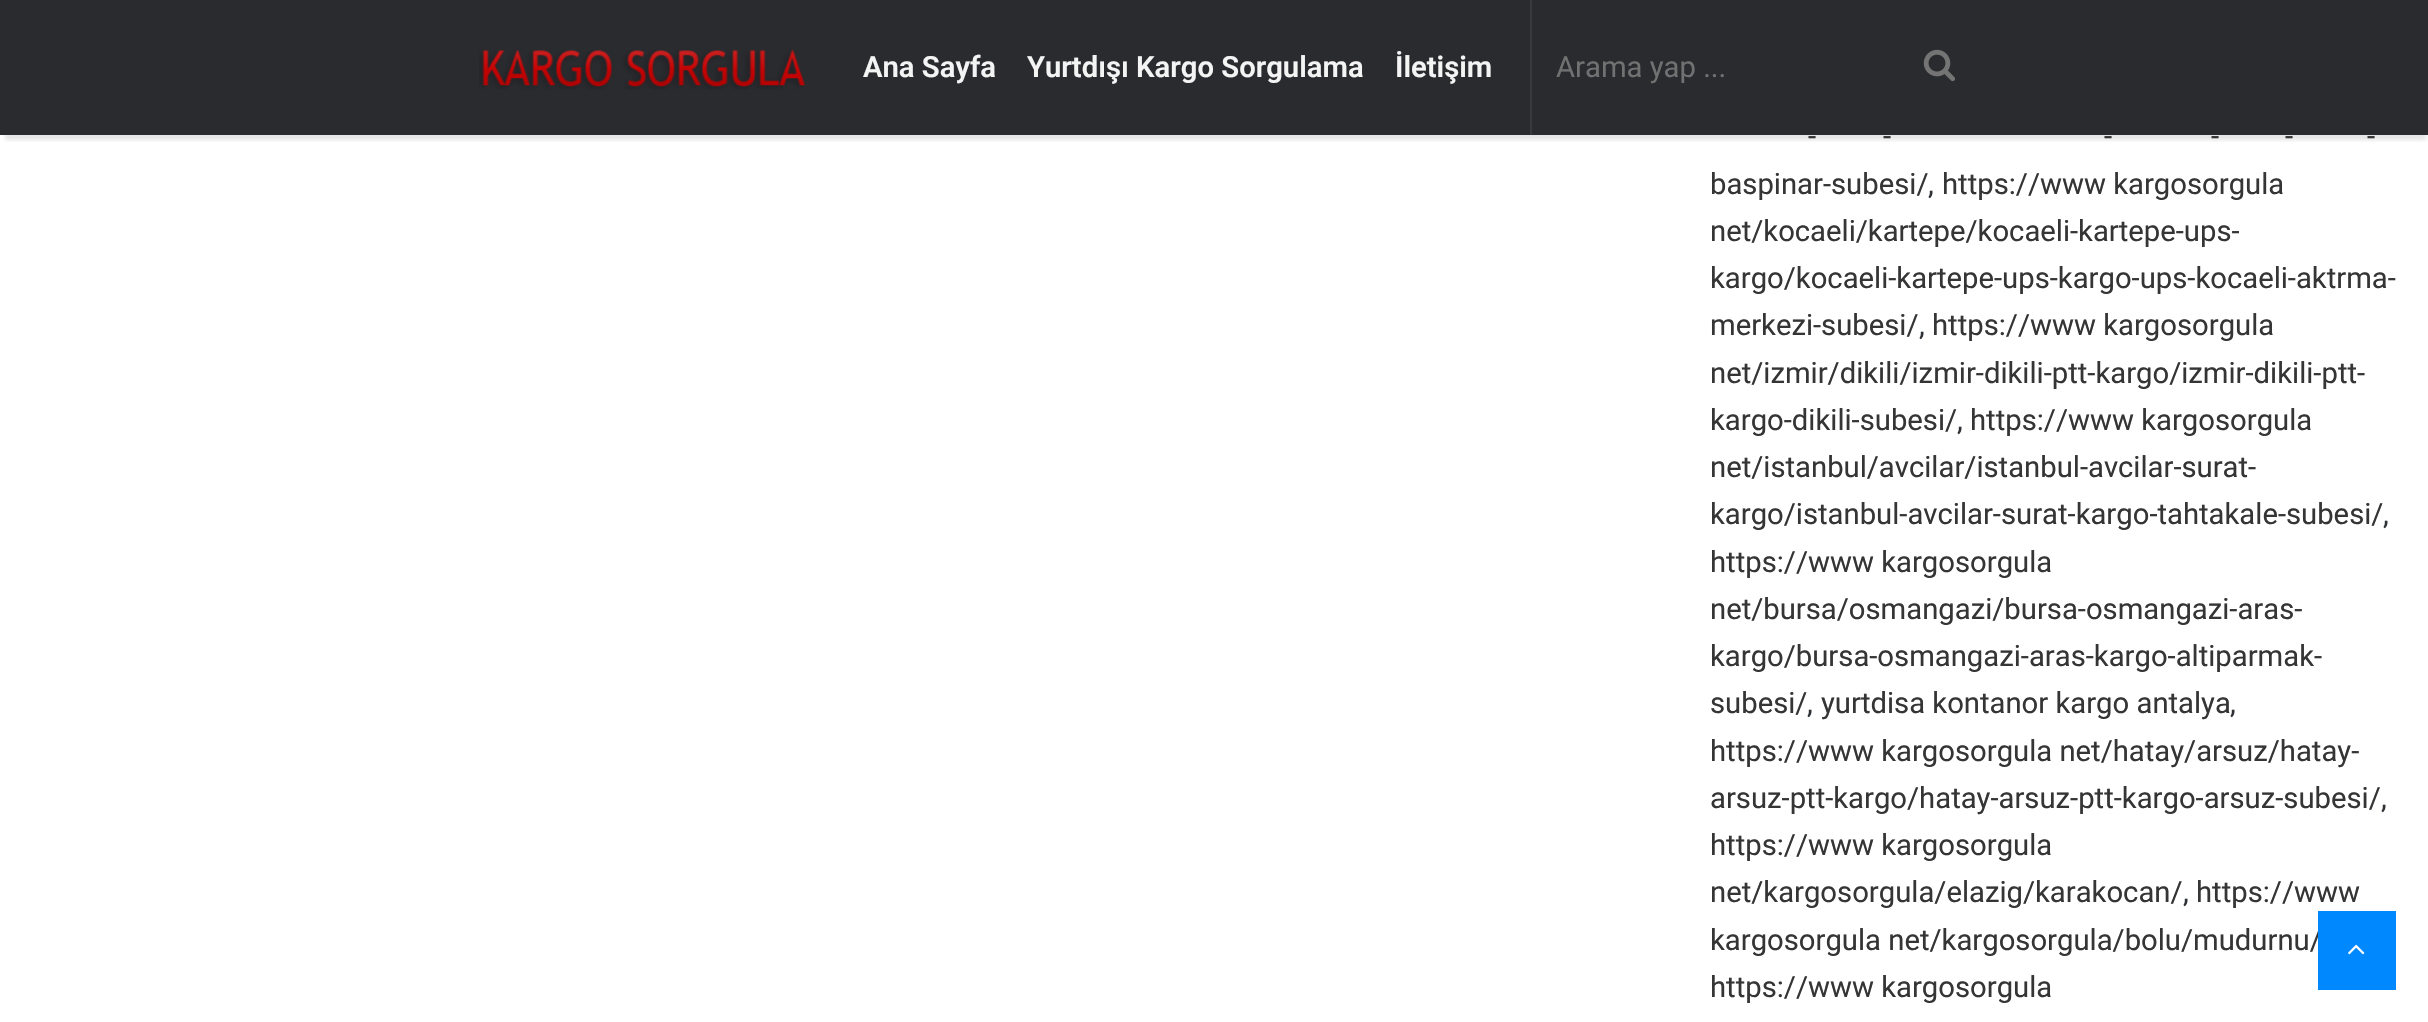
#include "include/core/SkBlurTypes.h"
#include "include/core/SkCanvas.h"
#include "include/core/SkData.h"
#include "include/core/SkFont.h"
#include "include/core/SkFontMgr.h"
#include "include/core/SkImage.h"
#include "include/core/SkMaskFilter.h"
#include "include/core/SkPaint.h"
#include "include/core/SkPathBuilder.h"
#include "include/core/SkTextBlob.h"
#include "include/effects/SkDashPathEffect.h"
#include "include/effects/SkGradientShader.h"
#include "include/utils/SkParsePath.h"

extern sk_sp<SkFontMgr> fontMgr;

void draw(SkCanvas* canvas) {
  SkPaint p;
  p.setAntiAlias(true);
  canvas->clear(SK_ColorWHITE);
  canvas->save();
  canvas->clipRect(SkRect::MakeLTRB(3, 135, 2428, 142));
  p.setColor(SkColorSetARGB(26, 0, 0, 0));
  p.setMaskFilter(SkMaskFilter::MakeBlur(kNormal_SkBlurStyle, 2));
  canvas->drawRect(SkRect::MakeLTRB(5, 14, 2426, 140), p);
  p.setMaskFilter(nullptr);
  canvas->restore();
  p.setColor(SkColorSetARGB(242, 31, 32, 36));
  canvas->drawRect(SkRect::MakeLTRB(0, 0, 2428, 135), p);
  canvas->drawImageRect(SkImages::DeferredFromEncodedData(SkData::MakeFromFileName("images/1.png")), SkRect::MakeLTRB(479, 50, 806, 90), SkSamplingOptions());
  p.setColor(SkColorSetRGB(56, 57, 61));
  canvas->drawRect(SkRect::MakeLTRB(1530, 0, 1532, 135), p);
  canvas->drawImageRect(SkImages::DeferredFromEncodedData(SkData::MakeFromFileName("images/2.png")), SkRect::MakeLTRB(1923, 49, 1955, 82), SkSamplingOptions());
  SkFont font1(fontMgr->matchFamilyStyle("Roboto", SkFontStyle(600, SkFontStyle::kNormal_Width, SkFontStyle::kUpright_Slant)), 29.25f);
  font1.setSubpixel(true);
  p.setColor(SkColorSetRGB(244, 244, 245));
  canvas->drawString("Ana Sayfa", 863, 77, font1, p);
  canvas->drawString("Yurtdışı Kargo Sorgulama", 1027, 77, font1, p);
  canvas->drawString("İletişim", 1395, 77, font1, p);
  SkFont font2(fontMgr->matchFamilyStyle("Roboto", SkFontStyle::Normal()), 29.25f);
  font2.setSubpixel(true);
  p.setColor(SkColorSetRGB(113, 113, 113));
  canvas->drawString("Arama yap ...", 1556, 77, font2, p);
  p.setColor(SkColorSetRGB(53, 53, 53));
  canvas->drawString("-", 1808, 146, font2, p);
  canvas->drawString("-", 1883, 146, font2, p);
  canvas->drawString("-", 2104, 146, font2, p);
  canvas->drawString("-", 2211, 146, font2, p);
  canvas->drawString("-", 2285, 146, font2, p);
  canvas->drawString("-", 2367, 146, font2, p);
  canvas->drawString("baspinar-subesi/", 1710, 194, font2, p);
  p.setColor(SkColorSetRGB(46, 49, 54));
  canvas->drawString(",", 1928, 194, font2, p);
  p.setColor(SkColorSetRGB(53, 53, 53));
  canvas->drawString("https://www kargosorgula", 1942, 194, font2, p);
  canvas->drawString("net/kocaeli/kartepe/kocaeli-kartepe-ups-", 1710, 241, font2, p);
  canvas->drawString("kargo/kocaeli-kartepe-ups-kargo-ups-kocaeli-aktrma-", 1710, 288, font2, p);
  canvas->drawString("merkezi-subesi/", 1710, 335, font2, p);
  p.setColor(SkColorSetRGB(46, 49, 54));
  canvas->drawString(",", 1919, 335, font2, p);
  p.setColor(SkColorSetRGB(53, 53, 53));
  canvas->drawString("https://www kargosorgula", 1932, 335, font2, p);
  canvas->drawString("net/izmir/dikili/izmir-dikili-ptt-kargo/izmir-dikili-ptt-", 1710, 383, font2, p);
  canvas->drawString("kargo-dikili-subesi/", 1710, 430, font2, p);
  p.setColor(SkColorSetRGB(46, 49, 54));
  canvas->drawString(",", 1957, 430, font2, p);
  p.setColor(SkColorSetRGB(53, 53, 53));
  canvas->drawString("https://www kargosorgula", 1970, 430, font2, p);
  canvas->drawString("net/istanbul/avcilar/istanbul-avcilar-surat-", 1710, 477, font2, p);
  canvas->drawString("kargo/istanbul-avcilar-surat-kargo-tahtakale-subesi/", 1710, 524, font2, p);
  p.setColor(SkColorSetRGB(46, 49, 54));
  canvas->drawString(",", 2383, 524, font2, p);
  p.setColor(SkColorSetRGB(53, 53, 53));
  canvas->drawString("https://www kargosorgula", 1710, 572, font2, p);
  canvas->drawString("net/bursa/osmangazi/bursa-osmangazi-aras-", 1710, 619, font2, p);
  canvas->drawString("kargo/bursa-osmangazi-aras-kargo-altiparmak-", 1710, 666, font2, p);
  canvas->drawString("subesi/", 1710, 713, font2, p);
  p.setColor(SkColorSetRGB(46, 49, 54));
  canvas->drawString(",", 1807, 713, font2, p);
  p.setColor(SkColorSetRGB(53, 53, 53));
  canvas->drawString("yurtdisa kontanor kargo antalya", 1821, 713, font2, p);
  p.setColor(SkColorSetRGB(46, 49, 54));
  canvas->drawString(",", 2230, 713, font2, p);
  p.setColor(SkColorSetRGB(53, 53, 53));
  canvas->drawString("https://www kargosorgula net/hatay/arsuz/hatay-", 1710, 761, font2, p);
  canvas->drawString("arsuz-ptt-kargo/hatay-arsuz-ptt-kargo-arsuz-subesi/", 1710, 808, font2, p);
  p.setColor(SkColorSetRGB(46, 49, 54));
  canvas->drawString(",", 2381, 808, font2, p);
  p.setColor(SkColorSetRGB(53, 53, 53));
  canvas->drawString("https://www kargosorgula", 1710, 855, font2, p);
  canvas->drawString("net/kargosorgula/elazig/karakocan/", 1710, 902, font2, p);
  p.setColor(SkColorSetRGB(46, 49, 54));
  canvas->drawString(",", 2183, 902, font2, p);
  p.setColor(SkColorSetRGB(53, 53, 53));
  canvas->drawString("https://www", 2196, 902, font2, p);
  canvas->drawString("kargosorgula net/kargosorgula/bolu/mudurnu/", 1710, 950, font2, p);
  canvas->drawString("https://www kargosorgula", 1710, 997, font2, p);
  p.setColor(SkColorSetRGB(0, 136, 255));
  canvas->drawRect(SkRect::MakeLTRB(2318, 911, 2396, 990), p);
  canvas->drawImageRect(SkImages::DeferredFromEncodedData(SkData::MakeFromFileName("images/3.png")), SkRect::MakeLTRB(2348, 944, 2365, 955), SkSamplingOptions());
}
